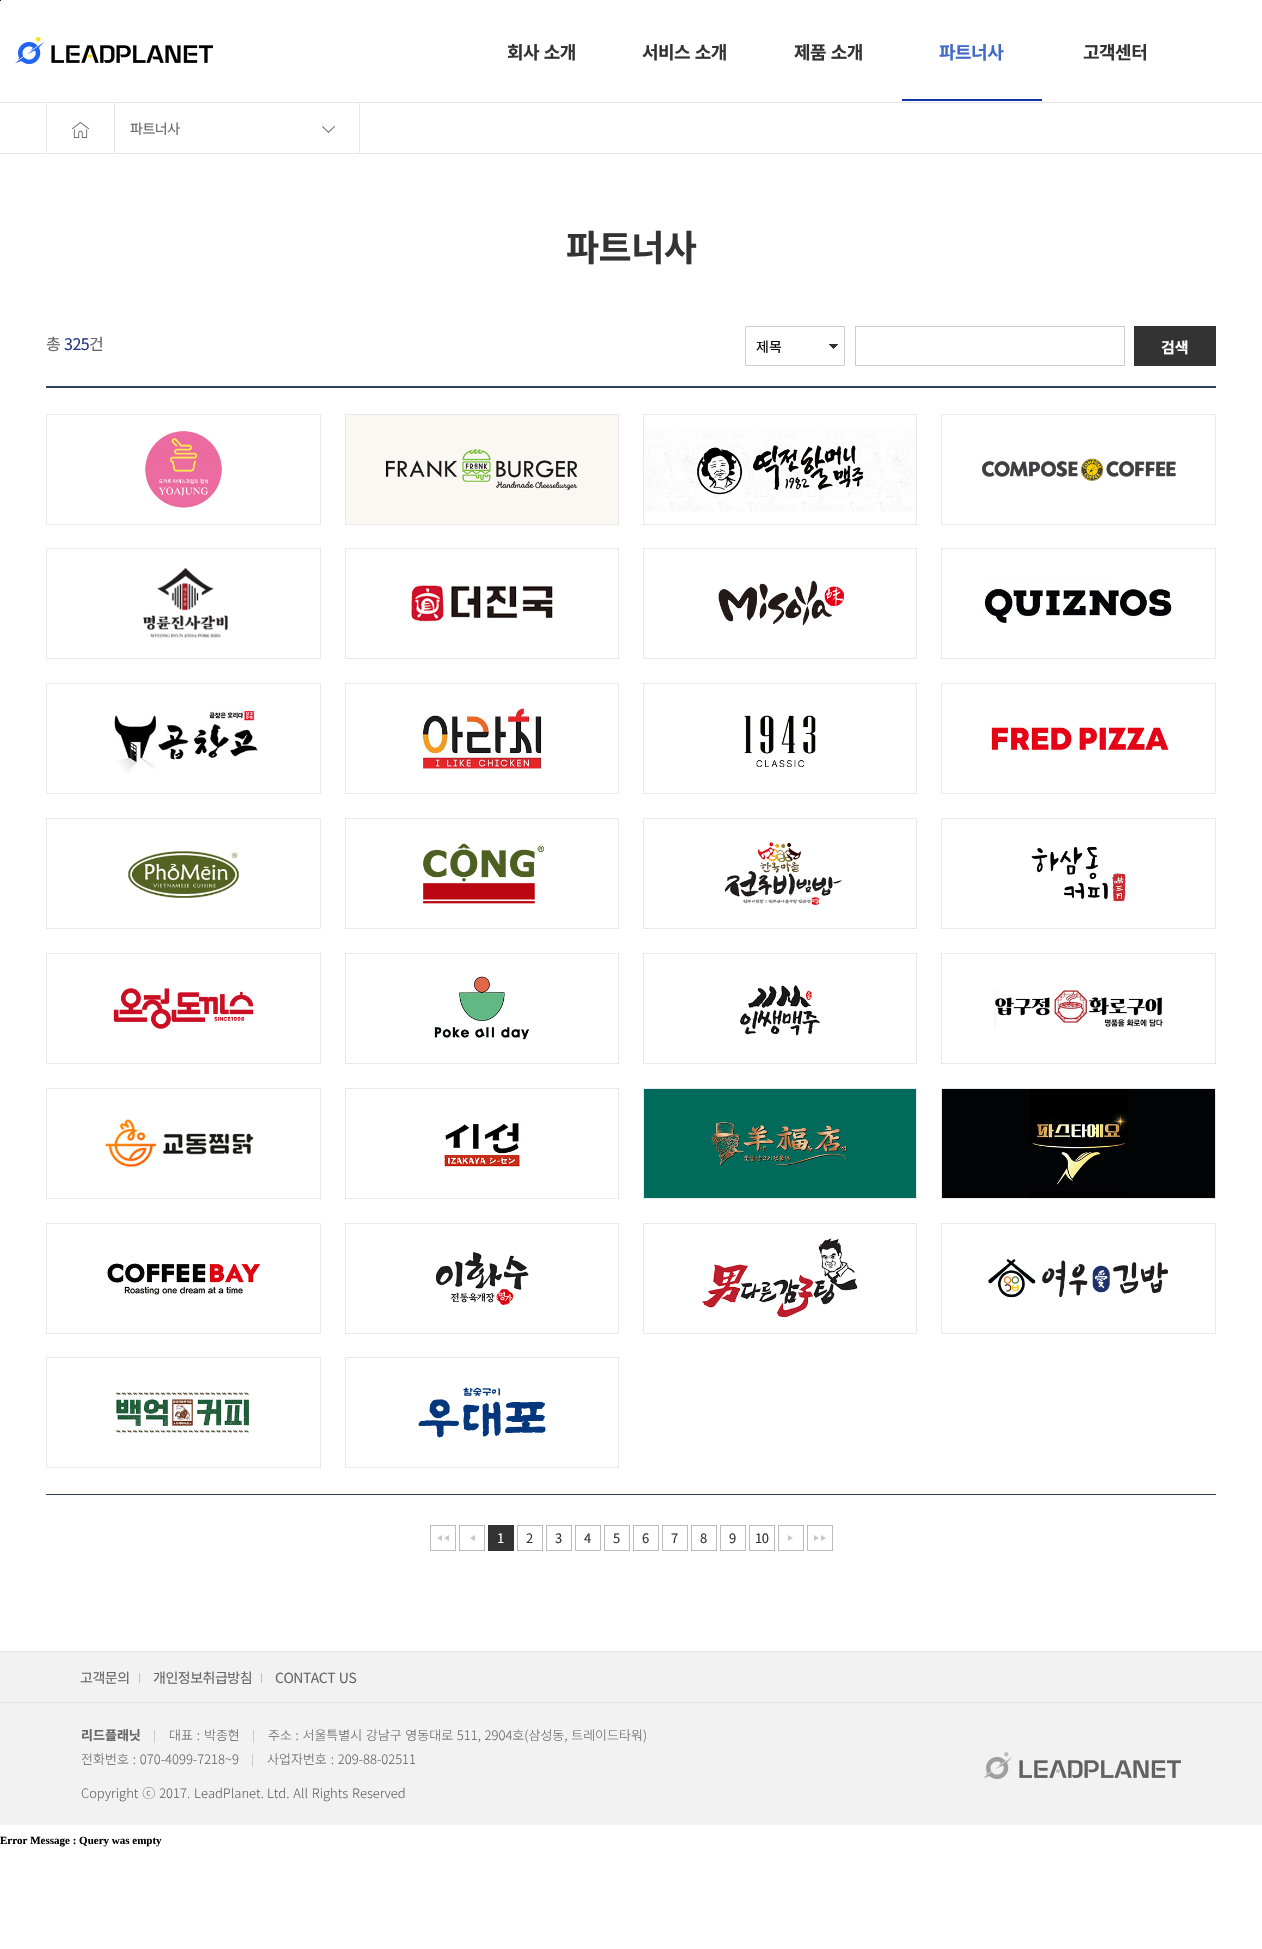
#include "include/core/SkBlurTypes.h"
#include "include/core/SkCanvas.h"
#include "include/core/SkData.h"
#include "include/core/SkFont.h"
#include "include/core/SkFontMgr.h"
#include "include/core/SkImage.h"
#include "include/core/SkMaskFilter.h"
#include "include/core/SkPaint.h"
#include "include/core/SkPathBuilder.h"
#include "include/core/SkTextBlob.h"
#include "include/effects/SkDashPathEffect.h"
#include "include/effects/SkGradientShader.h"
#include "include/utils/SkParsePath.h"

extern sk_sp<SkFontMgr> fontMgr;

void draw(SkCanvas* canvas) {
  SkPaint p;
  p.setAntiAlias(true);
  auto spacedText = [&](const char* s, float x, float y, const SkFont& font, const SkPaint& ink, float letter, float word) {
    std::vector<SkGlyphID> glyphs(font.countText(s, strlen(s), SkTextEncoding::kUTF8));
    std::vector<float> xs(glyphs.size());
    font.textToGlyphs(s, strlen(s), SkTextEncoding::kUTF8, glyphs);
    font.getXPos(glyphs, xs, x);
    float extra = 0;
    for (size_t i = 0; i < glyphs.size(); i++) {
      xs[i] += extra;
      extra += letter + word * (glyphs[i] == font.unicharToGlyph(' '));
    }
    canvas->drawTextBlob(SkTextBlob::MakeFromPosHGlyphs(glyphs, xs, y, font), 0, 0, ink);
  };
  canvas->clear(SK_ColorWHITE);
  p.setColor(SkColorSetRGB(21, 28, 45));
  canvas->drawRect(SkRect::MakeLTRB(0, 0, 1, 1), p);
  canvas->drawImageRect(SkImages::DeferredFromEncodedData(SkData::MakeFromFileName("images/1.png")), SkRect::MakeLTRB(15, 37, 213, 64), SkSamplingOptions());
  p.setColor(SkColorSetRGB(16, 53, 167));
  canvas->drawRect(SkRect::MakeLTRB(902, 99, 1042, 101), p);
  p.setColor(SkColorSetRGB(230, 230, 230));
  canvas->drawRect(SkRect::MakeLTRB(0, 102, 1262, 103), p);
  canvas->drawRect(SkRect::MakeLTRB(0, 153, 1262, 154), p);
  canvas->drawRect(SkRect::MakeLTRB(114, 103, 115, 153), p);
  canvas->drawRect(SkRect::MakeLTRB(46, 103, 47, 153), p);
  canvas->drawImageRect(SkImages::DeferredFromEncodedData(SkData::MakeFromFileName("images/2.png")), SkRect::MakeLTRB(72, 122, 89, 138), SkSamplingOptions());
  canvas->drawRect(SkRect::MakeLTRB(359, 103, 360, 153), p);
  canvas->drawImageRect(SkImages::DeferredFromEncodedData(SkData::MakeFromFileName("images/3.png")), SkRect::MakeLTRB(322, 126, 335, 133), SkSamplingOptions());
  canvas->drawImageRect(SkImages::DeferredFromEncodedData(SkData::MakeFromFileName("images/4.png")), SkRect::MakeLTRB(829, 344, 838, 349), SkSamplingOptions());
  p.setStyle(SkPaint::kStroke_Style);
  p.setStrokeWidth(1);
  p.setColor(SkColorSetRGB(204, 204, 204));
  canvas->drawRoundRect(SkRect::MakeLTRB(745.5f, 326.5f, 844.5f, 365.5f), 0.5f, 0.5f, p);
  canvas->drawRect(SkRect::MakeLTRB(855.5f, 326.5f, 1124.5f, 365.5f), p);
  p.setStyle(SkPaint::kFill_Style);
  p.setColor(SkColorSetRGB(51, 51, 51));
  canvas->drawRect(SkRect::MakeLTRB(1134, 326, 1216, 366), p);
  p.setColor(SkColorSetRGB(49, 66, 85));
  canvas->drawRect(SkRect::MakeLTRB(46, 386, 1216, 388), p);
  canvas->drawRect(SkRect::MakeLTRB(46, 1494, 1216, 1495), p);
  p.setStyle(SkPaint::kStroke_Style);
  p.setColor(SkColorSetRGB(233, 233, 233));
  canvas->drawRect(SkRect::MakeLTRB(46.5f, 414.5f, 320.5f, 524.5f), p);
  canvas->drawImageRect(SkImages::DeferredFromEncodedData(SkData::MakeFromFileName("images/5.png")), SkRect::MakeLTRB(145, 431, 222, 508), SkSamplingOptions());
  canvas->drawRect(SkRect::MakeLTRB(345.5f, 414.5f, 618.5f, 524.5f), p);
  canvas->drawImageRect(SkImages::DeferredFromEncodedData(SkData::MakeFromFileName("images/6.png")), SkRect::MakeLTRB(346, 415, 618, 524), SkSamplingOptions());
  canvas->drawRect(SkRect::MakeLTRB(643.5f, 414.5f, 916.5f, 524.5f), p);
  canvas->drawImageRect(SkImages::DeferredFromEncodedData(SkData::MakeFromFileName("images/7.png")), SkRect::MakeLTRB(644, 427, 916, 512), SkSamplingOptions());
  canvas->drawRect(SkRect::MakeLTRB(941.5f, 414.5f, 1215.5f, 524.5f), p);
  canvas->drawImageRect(SkImages::DeferredFromEncodedData(SkData::MakeFromFileName("images/8.png")), SkRect::MakeLTRB(982, 458, 1176, 481), SkSamplingOptions());
  canvas->drawRect(SkRect::MakeLTRB(46.5f, 548.5f, 320.5f, 658.5f), p);
  canvas->drawImageRect(SkImages::DeferredFromEncodedData(SkData::MakeFromFileName("images/9.png")), SkRect::MakeLTRB(143, 567, 228, 638), SkSamplingOptions());
  canvas->drawRect(SkRect::MakeLTRB(345.5f, 548.5f, 618.5f, 658.5f), p);
  canvas->drawImageRect(SkImages::DeferredFromEncodedData(SkData::MakeFromFileName("images/10.png")), SkRect::MakeLTRB(411, 585, 553, 622), SkSamplingOptions());
  canvas->drawRect(SkRect::MakeLTRB(643.5f, 548.5f, 916.5f, 658.5f), p);
  canvas->drawImageRect(SkImages::DeferredFromEncodedData(SkData::MakeFromFileName("images/11.png")), SkRect::MakeLTRB(718, 580, 844, 626), SkSamplingOptions());
  canvas->drawRect(SkRect::MakeLTRB(941.5f, 548.5f, 1215.5f, 658.5f), p);
  canvas->drawImageRect(SkImages::DeferredFromEncodedData(SkData::MakeFromFileName("images/12.png")), SkRect::MakeLTRB(984, 581, 1172, 623), SkSamplingOptions());
  canvas->drawRect(SkRect::MakeLTRB(46.5f, 683.5f, 320.5f, 793.5f), p);
  canvas->drawImageRect(SkImages::DeferredFromEncodedData(SkData::MakeFromFileName("images/13.png")), SkRect::MakeLTRB(114, 709, 258, 774), SkSamplingOptions());
  canvas->drawRect(SkRect::MakeLTRB(345.5f, 683.5f, 618.5f, 793.5f), p);
  canvas->drawImageRect(SkImages::DeferredFromEncodedData(SkData::MakeFromFileName("images/14.png")), SkRect::MakeLTRB(421, 708, 542, 769), SkSamplingOptions());
  canvas->drawRect(SkRect::MakeLTRB(643.5f, 683.5f, 916.5f, 793.5f), p);
  canvas->drawImageRect(SkImages::DeferredFromEncodedData(SkData::MakeFromFileName("images/15.png")), SkRect::MakeLTRB(744, 715, 816, 767), SkSamplingOptions());
  canvas->drawRect(SkRect::MakeLTRB(941.5f, 683.5f, 1215.5f, 793.5f), p);
  canvas->drawImageRect(SkImages::DeferredFromEncodedData(SkData::MakeFromFileName("images/16.png")), SkRect::MakeLTRB(988, 726, 1169, 751), SkSamplingOptions());
  canvas->drawRect(SkRect::MakeLTRB(46.5f, 818.5f, 320.5f, 928.5f), p);
  canvas->drawImageRect(SkImages::DeferredFromEncodedData(SkData::MakeFromFileName("images/17.png")), SkRect::MakeLTRB(128, 851, 239, 898), SkSamplingOptions());
  canvas->drawRect(SkRect::MakeLTRB(345.5f, 818.5f, 618.5f, 928.5f), p);
  canvas->drawImageRect(SkImages::DeferredFromEncodedData(SkData::MakeFromFileName("images/18.png")), SkRect::MakeLTRB(423, 843, 544, 904), SkSamplingOptions());
  canvas->drawRect(SkRect::MakeLTRB(643.5f, 818.5f, 916.5f, 928.5f), p);
  canvas->drawImageRect(SkImages::DeferredFromEncodedData(SkData::MakeFromFileName("images/19.png")), SkRect::MakeLTRB(724, 842, 843, 905), SkSamplingOptions());
  canvas->drawRect(SkRect::MakeLTRB(941.5f, 818.5f, 1215.5f, 928.5f), p);
  canvas->drawImageRect(SkImages::DeferredFromEncodedData(SkData::MakeFromFileName("images/20.png")), SkRect::MakeLTRB(1031, 847, 1126, 902), SkSamplingOptions());
  canvas->drawRect(SkRect::MakeLTRB(46.5f, 953.5f, 320.5f, 1063.5f), p);
  canvas->drawImageRect(SkImages::DeferredFromEncodedData(SkData::MakeFromFileName("images/21.png")), SkRect::MakeLTRB(113, 988, 254, 1029), SkSamplingOptions());
  canvas->drawRect(SkRect::MakeLTRB(345.5f, 953.5f, 618.5f, 1063.5f), p);
  canvas->drawImageRect(SkImages::DeferredFromEncodedData(SkData::MakeFromFileName("images/22.png")), SkRect::MakeLTRB(434, 976, 530, 1040), SkSamplingOptions());
  canvas->drawRect(SkRect::MakeLTRB(643.5f, 953.5f, 916.5f, 1063.5f), p);
  canvas->drawImageRect(SkImages::DeferredFromEncodedData(SkData::MakeFromFileName("images/23.png")), SkRect::MakeLTRB(740, 985, 820, 1036), SkSamplingOptions());
  canvas->drawRect(SkRect::MakeLTRB(941.5f, 953.5f, 1215.5f, 1063.5f), p);
  canvas->drawImageRect(SkImages::DeferredFromEncodedData(SkData::MakeFromFileName("images/24.png")), SkRect::MakeLTRB(994, 989, 1163, 1028), SkSamplingOptions());
  canvas->drawRect(SkRect::MakeLTRB(46.5f, 1088.5f, 320.5f, 1198.5f), p);
  canvas->drawImageRect(SkImages::DeferredFromEncodedData(SkData::MakeFromFileName("images/25.png")), SkRect::MakeLTRB(105, 1119, 254, 1167), SkSamplingOptions());
  canvas->drawRect(SkRect::MakeLTRB(345.5f, 1088.5f, 618.5f, 1198.5f), p);
  canvas->drawImageRect(SkImages::DeferredFromEncodedData(SkData::MakeFromFileName("images/26.png")), SkRect::MakeLTRB(444, 1123, 520, 1167), SkSamplingOptions());
  canvas->drawRect(SkRect::MakeLTRB(643.5f, 1088.5f, 916.5f, 1198.5f), p);
  canvas->drawImageRect(SkImages::DeferredFromEncodedData(SkData::MakeFromFileName("images/27.png")), SkRect::MakeLTRB(644, 1089, 916, 1198), SkSamplingOptions());
  canvas->drawRect(SkRect::MakeLTRB(941.5f, 1088.5f, 1215.5f, 1198.5f), p);
  canvas->drawImageRect(SkImages::DeferredFromEncodedData(SkData::MakeFromFileName("images/28.png")), SkRect::MakeLTRB(942, 1089, 1215, 1198), SkSamplingOptions());
  canvas->drawRect(SkRect::MakeLTRB(46.5f, 1223.5f, 320.5f, 1333.5f), p);
  canvas->drawImageRect(SkImages::DeferredFromEncodedData(SkData::MakeFromFileName("images/29.png")), SkRect::MakeLTRB(107, 1263, 261, 1295), SkSamplingOptions());
  canvas->drawRect(SkRect::MakeLTRB(345.5f, 1223.5f, 618.5f, 1333.5f), p);
  canvas->drawImageRect(SkImages::DeferredFromEncodedData(SkData::MakeFromFileName("images/30.png")), SkRect::MakeLTRB(436, 1252, 529, 1305), SkSamplingOptions());
  canvas->drawRect(SkRect::MakeLTRB(643.5f, 1223.5f, 916.5f, 1333.5f), p);
  canvas->drawImageRect(SkImages::DeferredFromEncodedData(SkData::MakeFromFileName("images/31.png")), SkRect::MakeLTRB(701, 1238, 858, 1318), SkSamplingOptions());
  canvas->drawRect(SkRect::MakeLTRB(941.5f, 1223.5f, 1215.5f, 1333.5f), p);
  canvas->drawImageRect(SkImages::DeferredFromEncodedData(SkData::MakeFromFileName("images/32.png")), SkRect::MakeLTRB(988, 1259, 1168, 1298), SkSamplingOptions());
  canvas->drawRect(SkRect::MakeLTRB(46.5f, 1357.5f, 320.5f, 1467.5f), p);
  canvas->drawImageRect(SkImages::DeferredFromEncodedData(SkData::MakeFromFileName("images/33.png")), SkRect::MakeLTRB(116, 1392, 249, 1433), SkSamplingOptions());
  canvas->drawRect(SkRect::MakeLTRB(345.5f, 1357.5f, 618.5f, 1467.5f), p);
  canvas->drawImageRect(SkImages::DeferredFromEncodedData(SkData::MakeFromFileName("images/34.png")), SkRect::MakeLTRB(418, 1387, 546, 1438), SkSamplingOptions());
  p.setColor(SkColorSetRGB(187, 187, 187));
  canvas->drawRect(SkRect::MakeLTRB(430.5f, 1525.5f, 455.5f, 1550.5f), p);
  canvas->drawImageRect(SkImages::DeferredFromEncodedData(SkData::MakeFromFileName("images/35.png")), SkRect::MakeLTRB(437, 1535, 449, 1541), SkSamplingOptions());
  canvas->drawRect(SkRect::MakeLTRB(459.5f, 1525.5f, 484.5f, 1550.5f), p);
  canvas->drawImageRect(SkImages::DeferredFromEncodedData(SkData::MakeFromFileName("images/36.png")), SkRect::MakeLTRB(470, 1535, 475, 1541), SkSamplingOptions());
  p.setStyle(SkPaint::kFill_Style);
  p.setColor(SkColorSetRGB(51, 51, 51));
  canvas->drawRect(SkRect::MakeLTRB(488, 1525, 514, 1551), p);
  p.setStyle(SkPaint::kStroke_Style);
  p.setColor(SkColorSetRGB(187, 187, 187));
  canvas->drawRect(SkRect::MakeLTRB(517.5f, 1525.5f, 542.5f, 1550.5f), p);
  canvas->drawRect(SkRect::MakeLTRB(546.5f, 1525.5f, 571.5f, 1550.5f), p);
  canvas->drawRect(SkRect::MakeLTRB(575.5f, 1525.5f, 600.5f, 1550.5f), p);
  canvas->drawRect(SkRect::MakeLTRB(604.5f, 1525.5f, 629.5f, 1550.5f), p);
  canvas->drawRect(SkRect::MakeLTRB(633.5f, 1525.5f, 658.5f, 1550.5f), p);
  canvas->drawRect(SkRect::MakeLTRB(662.5f, 1525.5f, 687.5f, 1550.5f), p);
  canvas->drawRect(SkRect::MakeLTRB(691.5f, 1525.5f, 716.5f, 1550.5f), p);
  canvas->drawRect(SkRect::MakeLTRB(720.5f, 1525.5f, 745.5f, 1550.5f), p);
  canvas->drawRect(SkRect::MakeLTRB(749.5f, 1525.5f, 774.5f, 1550.5f), p);
  canvas->drawRect(SkRect::MakeLTRB(778.5f, 1525.5f, 803.5f, 1550.5f), p);
  canvas->drawImageRect(SkImages::DeferredFromEncodedData(SkData::MakeFromFileName("images/37.png")), SkRect::MakeLTRB(788, 1535, 793, 1541), SkSamplingOptions());
  canvas->drawRect(SkRect::MakeLTRB(807.5f, 1525.5f, 832.5f, 1550.5f), p);
  canvas->drawImageRect(SkImages::DeferredFromEncodedData(SkData::MakeFromFileName("images/38.png")), SkRect::MakeLTRB(814, 1535, 826, 1541), SkSamplingOptions());
  p.setStyle(SkPaint::kFill_Style);
  p.setColor(SkColorSetRGB(242, 242, 242));
  canvas->drawRect(SkRect::MakeLTRB(0, 1652, 1262, 1702), p);
  p.setColor(SkColorSetRGB(230, 230, 230));
  canvas->drawRect(SkRect::MakeLTRB(0, 1651, 1262, 1652), p);
  canvas->drawRect(SkRect::MakeLTRB(0, 1702, 1262, 1703), p);
  p.setColor(SkColorSetRGB(192, 192, 192));
  canvas->drawRect(SkRect::MakeLTRB(139, 1673, 140, 1683), p);
  canvas->drawRect(SkRect::MakeLTRB(261, 1673, 262, 1683), p);
  p.setColor(SkColorSetRGB(242, 242, 242));
  canvas->drawRect(SkRect::MakeLTRB(0, 1703, 1262, 1825), p);
  p.setColor(SkColorSetRGB(203, 203, 203));
  canvas->drawRect(SkRect::MakeLTRB(154, 1730, 155, 1743), p);
  canvas->drawRect(SkRect::MakeLTRB(253, 1730, 254, 1743), p);
  canvas->drawRect(SkRect::MakeLTRB(252, 1754, 253, 1767), p);
  canvas->drawImageRect(SkImages::DeferredFromEncodedData(SkData::MakeFromFileName("images/39.png")), SkRect::MakeLTRB(983, 1752, 1181, 1779), SkSamplingOptions());
  SkFont font1(fontMgr->matchFamilyStyle("Noto Sans KR", SkFontStyle::Bold()), 18);
  font1.setSubpixel(true);
  p.setColor(SkColorSetRGB(51, 51, 51));
  spacedText("회사 소개", 507, 59, font1, p, -0.5f, 1);
  spacedText("서비스 소개", 642, 59, font1, p, -0.5f, 1);
  spacedText("제품 소개", 794, 59, font1, p, -0.5f, 1);
  p.setColor(SkColorSetRGB(65, 106, 199));
  spacedText("파트너사", 939, 59, font1, p, -0.5f, 0);
  p.setColor(SkColorSetRGB(51, 51, 51));
  spacedText("고객센터", 1083, 59, font1, p, -0.5f, 0);
  SkFont font2(fontMgr->matchFamilyStyle("Noto Sans KR", SkFontStyle::Normal()), 14);
  font2.setSubpixel(true);
  p.setColor(SkColorSetRGB(102, 102, 102));
  spacedText("파트너사", 130, 134, font2, p, -0.5f, 0);
  SkFont font3(fontMgr->matchFamilyStyle("Noto Sans KR", SkFontStyle::Bold()), 36);
  font3.setSubpixel(true);
  p.setColor(SkColorSetRGB(51, 51, 51));
  spacedText("파트너사", 566, 261, font3, p, -0.5f, 0);
  SkFont font4(fontMgr->matchFamilyStyle("Noto Sans KR", SkFontStyle::Normal()), 16);
  font4.setSubpixel(true);
  p.setColor(SkColorSetRGB(102, 102, 102));
  spacedText("총", 46, 350, font4, p, -0.5f, 0);
  p.setColor(SkColorSetRGB(37, 54, 126));
  spacedText("325", 64, 350, font4, p, -0.5f, 0);
  p.setColor(SkColorSetRGB(102, 102, 102));
  spacedText("건", 89, 350, font4, p, -0.5f, 0);
  p.setColor(SK_ColorBLACK);
  canvas->drawString("제목", 756, 352, font2, p);
  SkFont font5(fontMgr->matchFamilyStyle("Noto Sans KR", SkFontStyle::Bold()), 15);
  font5.setSubpixel(true);
  p.setColor(SK_ColorWHITE);
  canvas->drawString("검색", 1161, 353, font5, p);
  SkFont font6(fontMgr->matchFamilyStyle("Noto Sans KR", SkFontStyle::Normal()), 13);
  font6.setSubpixel(true);
  spacedText("1", 497, 1543, font6, p, -0.5f, 0);
  p.setColor(SkColorSetRGB(51, 51, 51));
  spacedText("2", 526, 1543, font6, p, -0.5f, 0);
  spacedText("3", 555, 1543, font6, p, -0.5f, 0);
  spacedText("4", 584, 1543, font6, p, -0.5f, 0);
  spacedText("5", 613, 1543, font6, p, -0.5f, 0);
  spacedText("6", 642, 1543, font6, p, -0.5f, 0);
  spacedText("7", 671, 1543, font6, p, -0.5f, 0);
  spacedText("8", 700, 1543, font6, p, -0.5f, 0);
  spacedText("9", 729, 1543, font6, p, -0.5f, 0);
  spacedText("10", 755, 1543, font6, p, -0.5f, 0);
  p.setColor(SkColorSetRGB(102, 102, 102));
  spacedText("고객문의", 80, 1683, font2, p, -0.5f, 0);
  spacedText("개인정보취급방침", 153, 1683, font2, p, -0.5f, 0);
  spacedText("CONTACT US", 275, 1683, font2, p, -0.5f, 1);
  SkFont font7(fontMgr->matchFamilyStyle("Noto Sans KR", SkFontStyle::Bold()), 13);
  font7.setSubpixel(true);
  canvas->drawString("리드플래닛", 81, 1740, font7, p);
  SkFont font8(fontMgr->matchFamilyStyle("Noto Sans KR", SkFontStyle(300, SkFontStyle::kNormal_Width, SkFontStyle::kUpright_Slant)), 13);
  font8.setSubpixel(true);
  spacedText("대표 : 박종현", 169, 1740, font8, p, 0, 1);
  spacedText("주소 : 서울특별시 강남구 영동대로 511, 2904호(삼성동, 트레이드타워)", 268, 1740, font8, p, 0, 0.75f);
  spacedText("전화번호 : 070-4099-7218~9", 81, 1764, font8, p, 0, 1);
  spacedText("사업자번호 : 209-88-02511", 267, 1764, font8, p, 0, 1);
  spacedText("Copyright ⓒ 2017. LeadPlanet.", 81, 1798, font8, p, 0, 1);
  spacedText("Ltd. All Rights Reserved", 267, 1798, font8, p, 0, 1);
  SkFont font9(fontMgr->matchFamilyStyle("Liberation Serif", SkFontStyle::Bold()), 11);
  font9.setSubpixel(true);
  p.setColor(SK_ColorBLACK);
  canvas->drawString("Error Message : Query was empty", 0, 1844, font9, p);
}
